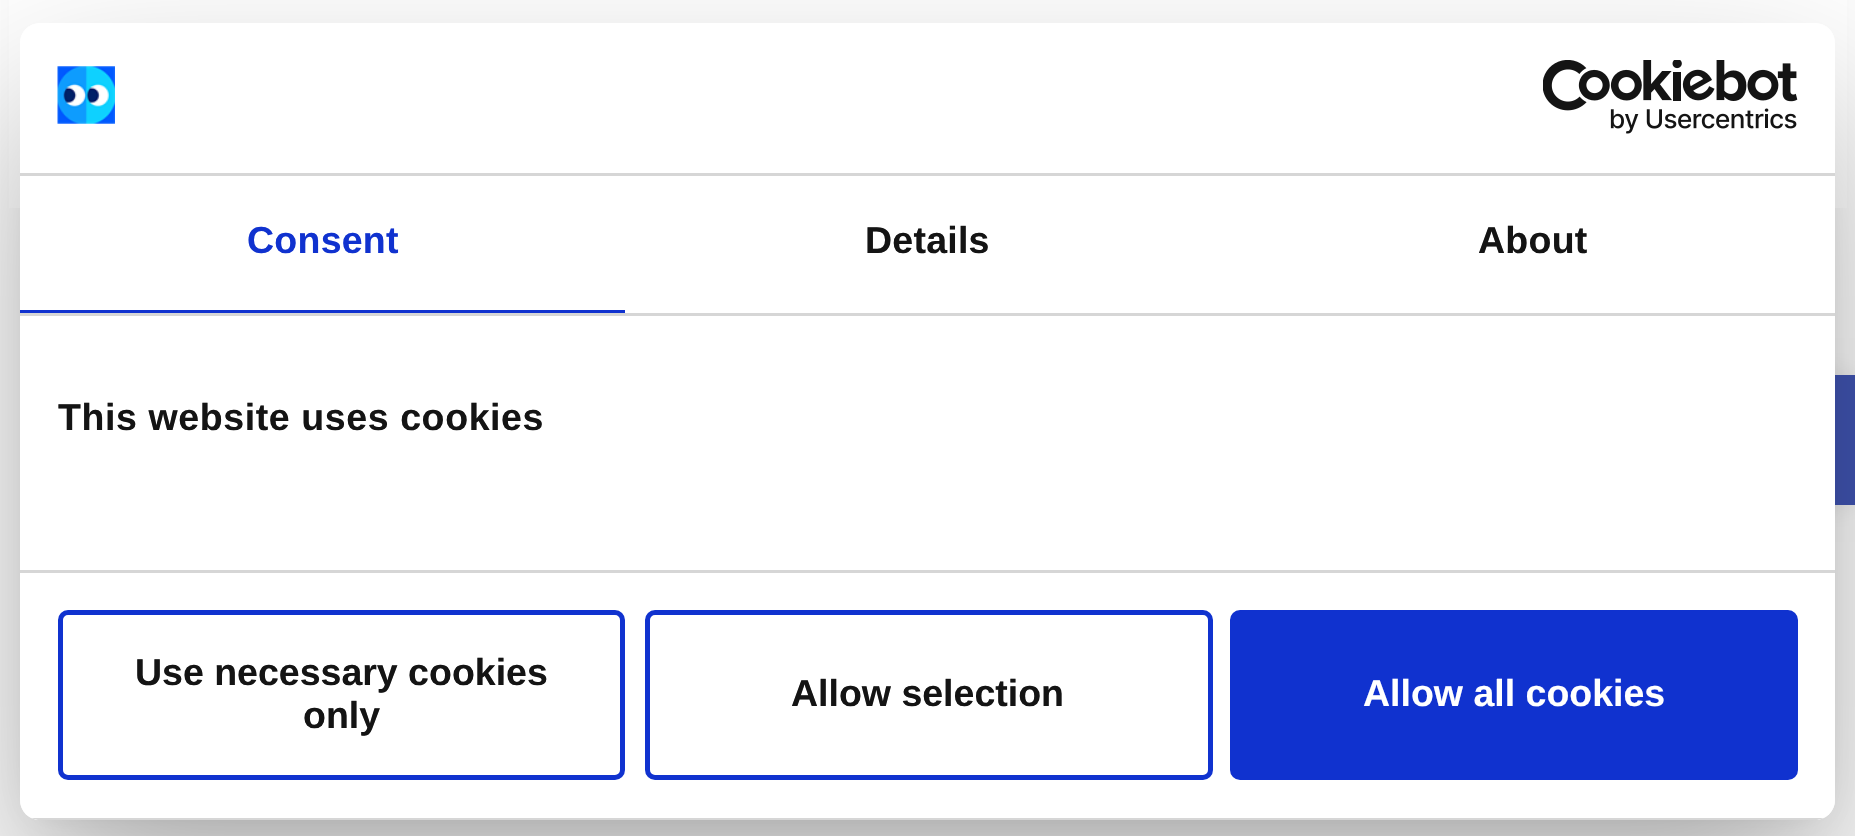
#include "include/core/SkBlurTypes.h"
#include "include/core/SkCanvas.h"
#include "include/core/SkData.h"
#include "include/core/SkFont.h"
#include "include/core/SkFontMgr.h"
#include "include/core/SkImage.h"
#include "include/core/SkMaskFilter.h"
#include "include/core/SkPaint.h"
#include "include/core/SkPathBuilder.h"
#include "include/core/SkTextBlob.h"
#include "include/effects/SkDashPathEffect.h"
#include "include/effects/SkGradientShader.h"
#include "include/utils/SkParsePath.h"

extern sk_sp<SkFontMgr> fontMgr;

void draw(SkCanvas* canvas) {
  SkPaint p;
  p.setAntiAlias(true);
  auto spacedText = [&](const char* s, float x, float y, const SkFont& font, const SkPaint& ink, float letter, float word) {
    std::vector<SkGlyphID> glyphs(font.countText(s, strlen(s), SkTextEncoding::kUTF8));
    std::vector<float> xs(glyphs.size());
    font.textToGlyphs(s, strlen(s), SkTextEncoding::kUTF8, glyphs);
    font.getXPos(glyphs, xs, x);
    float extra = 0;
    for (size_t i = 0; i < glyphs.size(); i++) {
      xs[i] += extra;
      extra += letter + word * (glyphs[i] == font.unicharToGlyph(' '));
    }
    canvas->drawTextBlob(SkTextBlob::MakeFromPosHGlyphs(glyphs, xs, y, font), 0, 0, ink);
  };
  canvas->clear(SK_ColorWHITE);
  p.setColor(SkColorSetARGB(38, 0, 0, 0));
  p.setMaskFilter(SkMaskFilter::MakeBlur(kNormal_SkBlurStyle, 19));
  canvas->drawRect(SkRect::MakeLTRB(38, -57, 1818, 808), p);
  p.setMaskFilter(nullptr);
  p.setColor(SK_ColorWHITE);
  canvas->drawRect(SkRect::MakeLTRB(9, 0, 1847, 208), p);
  p.setColor(SkColorSetARGB(26, 0, 0, 0));
  p.setMaskFilter(SkMaskFilter::MakeBlur(kNormal_SkBlurStyle, 12.5f));
  canvas->drawRect(SkRect::MakeLTRB(1725, 375, 1855, 505), p);
  p.setMaskFilter(nullptr);
  p.setColor(SkColorSetRGB(64, 84, 178));
  canvas->drawRect(SkRect::MakeLTRB(1835, 375, 1855, 505), p);
  canvas->save();
  canvas->clipPath(SkPathBuilder(SkPathFillType::kEvenOdd).moveTo(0, 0).lineTo(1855, 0).lineTo(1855, 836).lineTo(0, 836).close().moveTo(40, 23).lineTo(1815, 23).cubicTo(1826, 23, 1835, 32, 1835, 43).lineTo(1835, 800).cubicTo(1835, 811, 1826, 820, 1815, 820).lineTo(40, 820).cubicTo(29, 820, 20, 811, 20, 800).lineTo(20, 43).cubicTo(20, 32, 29, 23, 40, 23).close().detach(), true);
  p.setColor(SkColorSetARGB(77, 0, 0, 0));
  p.setMaskFilter(SkMaskFilter::MakeBlur(kNormal_SkBlurStyle, 85));
  canvas->drawRoundRect(SkRect::MakeLTRB(20, 103, 1835, 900), 20, 20, p);
  p.setMaskFilter(nullptr);
  canvas->restore();
  p.setColor(SK_ColorWHITE);
  canvas->drawRoundRect(SkRect::MakeLTRB(20, 23, 1835, 820), 20, 20, p);
  p.setColor(SkColorSetRGB(214, 214, 214));
  canvas->drawRect(SkRect::MakeLTRB(20, 173, 1835, 176), p);
  canvas->drawImageRect(SkImages::DeferredFromEncodedData(SkData::MakeFromFileName("images/1.png")), SkRect::MakeLTRB(57, 66, 115, 124), SkSamplingOptions());
  canvas->drawImageRect(SkImages::DeferredFromEncodedData(SkData::MakeFromFileName("images/2.png")), SkRect::MakeLTRB(1543, 60, 1798, 134), SkSamplingOptions());
  canvas->drawRect(SkRect::MakeLTRB(20, 313, 1835, 316), p);
  p.setColor(SkColorSetRGB(16, 50, 207));
  canvas->drawRect(SkRect::MakeLTRB(20, 310, 625, 313), p);
  p.setColor(SkColorSetRGB(214, 214, 214));
  canvas->drawRect(SkRect::MakeLTRB(20, 570, 1835, 573), p);
  canvas->save();
  canvas->clipPath(SkPathBuilder().moveTo(40, 23).lineTo(1815, 23).cubicTo(1826, 23, 1835, 32, 1835, 43).lineTo(1835, 800).cubicTo(1835, 811, 1826, 820, 1815, 820).lineTo(40, 820).cubicTo(29, 820, 20, 811, 20, 800).lineTo(20, 43).cubicTo(20, 32, 29, 23, 40, 23).close().detach(), true);
  canvas->drawRect(SkRect::MakeLTRB(31, 818, 1824, 820), p);
  canvas->restore();
  p.setStyle(SkPaint::kStroke_Style);
  p.setStrokeWidth(5);
  p.setColor(SkColorSetRGB(16, 50, 207));
  canvas->drawRoundRect(SkRect::MakeLTRB(60.5f, 612.5f, 622.5f, 777.5f), 7.5f, 7.5f, p);
  canvas->drawRoundRect(SkRect::MakeLTRB(647.5f, 612.5f, 1210.5f, 777.5f), 7.5f, 7.5f, p);
  p.setStyle(SkPaint::kFill_Style);
  canvas->drawRoundRect(SkRect::MakeLTRB(1232.5f, 612.5f, 1795.5f, 777.5f), 7.5f, 7.5f, p);
  p.setStyle(SkPaint::kStroke_Style);
  canvas->drawRoundRect(SkRect::MakeLTRB(1232.5f, 612.5f, 1795.5f, 777.5f), 7.5f, 7.5f, p);
  SkFont font1(fontMgr->matchFamilyStyle("Liberation Sans", SkFontStyle::Bold()), 37.5f);
  font1.setSubpixel(true);
  p.setStyle(SkPaint::kFill_Style);
  spacedText("Consent", 247, 253, font1, p, 0.25f, 0);
  p.setColor(SkColorSetRGB(20, 20, 20));
  spacedText("Details", 865, 253, font1, p, 0.25f, 0);
  spacedText("About", 1478, 253, font1, p, 0.25f, 0);
  spacedText("This website uses cookies", 58, 430, font1, p, 0.6f, 0);
  canvas->drawString("Use necessary cookies", 135, 685, font1, p);
  canvas->drawString("only", 303, 728, font1, p);
  canvas->drawString("Allow selection", 791, 706, font1, p);
  p.setColor(SK_ColorWHITE);
  canvas->drawString("Allow all cookies", 1363, 706, font1, p);
}
